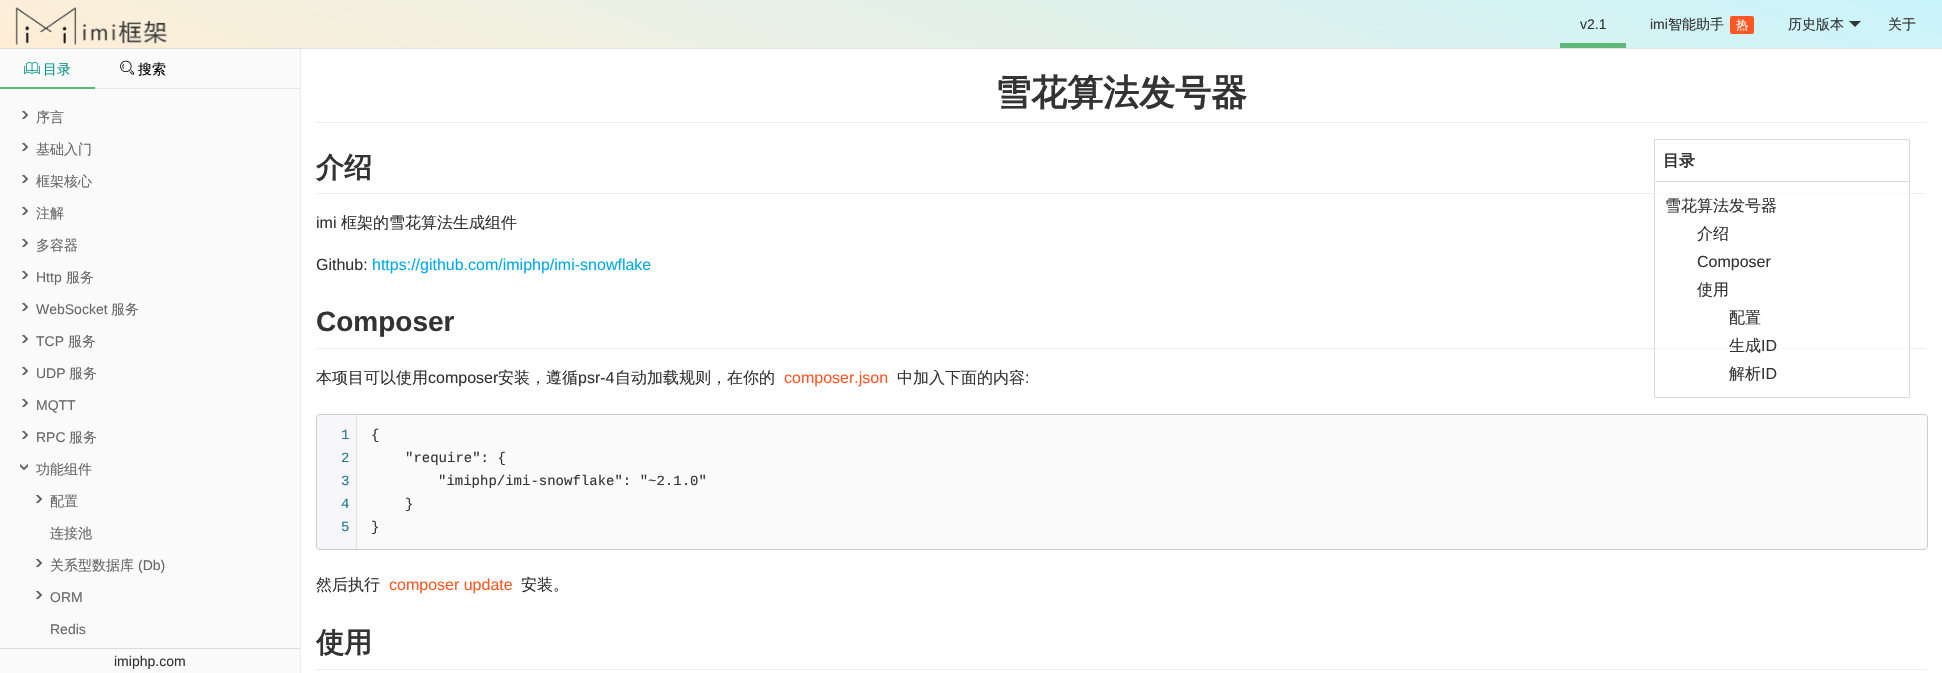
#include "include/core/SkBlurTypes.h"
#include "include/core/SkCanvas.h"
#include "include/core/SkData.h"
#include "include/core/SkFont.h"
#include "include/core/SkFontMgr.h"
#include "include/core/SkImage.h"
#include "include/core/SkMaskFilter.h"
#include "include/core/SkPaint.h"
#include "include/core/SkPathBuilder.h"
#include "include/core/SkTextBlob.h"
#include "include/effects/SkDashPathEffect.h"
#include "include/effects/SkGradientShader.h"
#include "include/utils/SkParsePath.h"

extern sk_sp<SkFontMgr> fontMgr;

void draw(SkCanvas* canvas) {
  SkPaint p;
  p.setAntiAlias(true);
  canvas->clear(SK_ColorWHITE);
  {
    const SkColor colors[] = {SkColorSetRGB(201, 244, 251), SkColorSetRGB(255, 238, 214)};
    const float stops[] = {0, 1};
    const SkPoint ends[] = {{1092, -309}, {850, 357}};
    p.setShader(SkGradientShader::MakeLinear(ends, colors, stops, 2, SkTileMode::kClamp));
    p.setAlpha(255);
  }
  canvas->drawRect(SkRect::MakeLTRB(0, 0, 1942, 48), p);
  p.setShader(nullptr);
  p.setColor(SkColorSetRGB(250, 250, 250));
  canvas->drawRect(SkRect::MakeLTRB(0, 48, 300, 673), p);
  p.setColor(SkColorSetRGB(238, 238, 238));
  canvas->drawRect(SkRect::MakeLTRB(300, 48, 301, 673), p);
  canvas->save();
  canvas->clipRect(SkRect::MakeLTRB(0, 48, 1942, 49));
  p.setColor(SkColorSetARGB(26, 0, 0, 0));
  p.setMaskFilter(SkMaskFilter::MakeBlur(kNormal_SkBlurStyle, 0.5f));
  canvas->drawRect(SkRect::MakeLTRB(0, 1, 1942, 49), p);
  p.setMaskFilter(nullptr);
  canvas->restore();
  canvas->drawImageRect(SkImages::DeferredFromEncodedData(SkData::MakeFromFileName("images/1.png")), SkRect::MakeLTRB(15, 7, 167, 45), SkSamplingOptions());
  p.setColor(SkColorSetRGB(95, 184, 120));
  canvas->drawRect(SkRect::MakeLTRB(1560, 43, 1626, 48), p);
  p.setColor(SkColorSetRGB(255, 87, 34));
  canvas->drawRoundRect(SkRect::MakeLTRB(1730, 16, 1754, 34), 2, 2, p);
  p.setColor(SkColorSetRGB(51, 51, 51));
  canvas->drawPath(SkPathBuilder().moveTo(1849, 21).lineTo(1861, 21).lineTo(1855, 27).close().detach(), p);
  p.setColor(SkColorSetRGB(230, 230, 230));
  canvas->drawRect(SkRect::MakeLTRB(95, 88, 300, 89), p);
  canvas->drawImageRect(SkImages::DeferredFromEncodedData(SkData::MakeFromFileName("images/2.png")), SkRect::MakeLTRB(24, 62, 40, 75), SkSamplingOptions());
  p.setColor(SkColorSetRGB(95, 184, 120));
  canvas->drawRect(SkRect::MakeLTRB(0, 87, 95, 89), p);
  canvas->drawImageRect(SkImages::DeferredFromEncodedData(SkData::MakeFromFileName("images/3.png")), SkRect::MakeLTRB(120, 60, 135, 75), SkSamplingOptions());
  canvas->drawImageRect(SkImages::DeferredFromEncodedData(SkData::MakeFromFileName("images/4.png")), SkRect::MakeLTRB(22, 111, 28, 119), SkSamplingOptions());
  canvas->drawImageRect(SkImages::DeferredFromEncodedData(SkData::MakeFromFileName("images/4.png")), SkRect::MakeLTRB(22, 143, 28, 151), SkSamplingOptions());
  canvas->drawImageRect(SkImages::DeferredFromEncodedData(SkData::MakeFromFileName("images/4.png")), SkRect::MakeLTRB(22, 175, 28, 183), SkSamplingOptions());
  canvas->drawImageRect(SkImages::DeferredFromEncodedData(SkData::MakeFromFileName("images/4.png")), SkRect::MakeLTRB(22, 207, 28, 215), SkSamplingOptions());
  canvas->drawImageRect(SkImages::DeferredFromEncodedData(SkData::MakeFromFileName("images/4.png")), SkRect::MakeLTRB(22, 239, 28, 247), SkSamplingOptions());
  canvas->drawImageRect(SkImages::DeferredFromEncodedData(SkData::MakeFromFileName("images/4.png")), SkRect::MakeLTRB(22, 271, 28, 279), SkSamplingOptions());
  canvas->drawImageRect(SkImages::DeferredFromEncodedData(SkData::MakeFromFileName("images/4.png")), SkRect::MakeLTRB(22, 303, 28, 311), SkSamplingOptions());
  canvas->drawImageRect(SkImages::DeferredFromEncodedData(SkData::MakeFromFileName("images/4.png")), SkRect::MakeLTRB(22, 335, 28, 343), SkSamplingOptions());
  canvas->drawImageRect(SkImages::DeferredFromEncodedData(SkData::MakeFromFileName("images/4.png")), SkRect::MakeLTRB(22, 367, 28, 375), SkSamplingOptions());
  canvas->drawImageRect(SkImages::DeferredFromEncodedData(SkData::MakeFromFileName("images/4.png")), SkRect::MakeLTRB(22, 399, 28, 407), SkSamplingOptions());
  canvas->drawImageRect(SkImages::DeferredFromEncodedData(SkData::MakeFromFileName("images/4.png")), SkRect::MakeLTRB(22, 431, 28, 439), SkSamplingOptions());
  canvas->drawImageRect(SkImages::DeferredFromEncodedData(SkData::MakeFromFileName("images/5.png")), SkRect::MakeLTRB(20, 464, 28, 470), SkSamplingOptions());
  canvas->drawImageRect(SkImages::DeferredFromEncodedData(SkData::MakeFromFileName("images/4.png")), SkRect::MakeLTRB(36, 495, 42, 503), SkSamplingOptions());
  canvas->drawImageRect(SkImages::DeferredFromEncodedData(SkData::MakeFromFileName("images/4.png")), SkRect::MakeLTRB(36, 559, 42, 567), SkSamplingOptions());
  canvas->drawImageRect(SkImages::DeferredFromEncodedData(SkData::MakeFromFileName("images/4.png")), SkRect::MakeLTRB(36, 591, 42, 599), SkSamplingOptions());
  p.setColor(SkColorSetRGB(221, 221, 221));
  canvas->drawRect(SkRect::MakeLTRB(0, 648, 300, 649), p);
  p.setColor(SkColorSetRGB(238, 238, 238));
  canvas->drawRect(SkRect::MakeLTRB(316, 122, 1926, 123), p);
  canvas->drawRect(SkRect::MakeLTRB(316, 193, 1926, 194), p);
  p.setColor(SkColorSetRGB(249, 249, 249));
  canvas->drawRect(SkRect::MakeLTRB(1654, 193, 1910, 194), p);
  p.setColor(SkColorSetRGB(238, 238, 238));
  canvas->drawRect(SkRect::MakeLTRB(316, 348, 1926, 349), p);
  p.setColor(SkColorSetRGB(249, 249, 249));
  canvas->drawRect(SkRect::MakeLTRB(1654, 348, 1910, 349), p);
  p.setStyle(SkPaint::kStroke_Style);
  p.setStrokeWidth(1);
  p.setColor(SkColorSetRGB(219, 219, 219));
  canvas->drawRect(SkRect::MakeLTRB(1654.5f, 139.5f, 1909.5f, 397.5f), p);
  p.setStyle(SkPaint::kFill_Style);
  canvas->drawRect(SkRect::MakeLTRB(1655, 181, 1909, 182), p);
  p.setColor(SkColorSetRGB(250, 250, 250));
  canvas->drawRoundRect(SkRect::MakeLTRB(316.5f, 414.5f, 1927.5f, 549.5f), 3.5f, 3.5f, p);
  p.setStyle(SkPaint::kStroke_Style);
  p.setColor(SkColorSetRGB(204, 204, 204));
  canvas->drawRoundRect(SkRect::MakeLTRB(316.5f, 414.5f, 1927.5f, 549.5f), 3.5f, 3.5f, p);
  p.setStyle(SkPaint::kFill_Style);
  p.setColor(SkColorSetRGB(247, 247, 249));
  canvas->drawPath(SkPathBuilder().moveTo(321, 415).lineTo(357, 415).lineTo(357, 549).lineTo(321, 549).cubicTo(319, 549, 317, 547, 317, 545).lineTo(317, 419).cubicTo(317, 417, 319, 415, 321, 415).close().detach(), p);
  p.setColor(SkColorSetRGB(225, 225, 232));
  canvas->drawRect(SkRect::MakeLTRB(356, 415, 357, 549), p);
  p.setColor(SkColorSetRGB(238, 238, 238));
  canvas->drawRect(SkRect::MakeLTRB(316, 669, 1926, 670), p);
  SkFont font1(fontMgr->matchFamilyStyle("Liberation Sans", SkFontStyle::Normal()), 14);
  font1.setSubpixel(true);
  p.setColor(SkColorSetRGB(51, 51, 51));
  canvas->drawString("v2.1", 1580, 29, font1, p);
  canvas->drawString("imi", 1650, 29, font1, p);
  SkFont font2(fontMgr->matchFamilyStyle("WenQuanYi Zen Hei", SkFontStyle(500, SkFontStyle::kNormal_Width, SkFontStyle::kUpright_Slant)), 14);
  font2.setSubpixel(true);
  canvas->drawString("智能助手", 1668, 29, font2, p);
  SkFont font3(fontMgr->matchFamilyStyle("WenQuanYi Zen Hei", SkFontStyle(500, SkFontStyle::kNormal_Width, SkFontStyle::kUpright_Slant)), 12);
  font3.setSubpixel(true);
  p.setColor(SK_ColorWHITE);
  canvas->drawString("热", 1736, 29, font3, p);
  p.setColor(SkColorSetRGB(51, 51, 51));
  canvas->drawString("历史版本", 1788, 29, font2, p);
  canvas->drawString("关于", 1888, 29, font2, p);
  p.setColor(SkColorSetRGB(0, 150, 136));
  canvas->drawString("目录", 43, 74, font2, p);
  p.setColor(SK_ColorBLACK);
  canvas->drawString("搜索", 138, 74, font2, p);
  p.setColor(SkColorSetRGB(102, 102, 102));
  canvas->drawString("序言", 36, 122, font2, p);
  canvas->drawString("基础入门", 36, 154, font2, p);
  canvas->drawString("框架核心", 36, 186, font2, p);
  canvas->drawString("注解", 36, 218, font2, p);
  canvas->drawString("多容器", 36, 250, font2, p);
  canvas->drawString("Http", 36, 282, font1, p);
  canvas->drawString("服务", 66, 282, font2, p);
  canvas->drawString("WebSocket", 36, 314, font1, p);
  canvas->drawString("服务", 111, 314, font2, p);
  canvas->drawString("TCP", 36, 346, font1, p);
  canvas->drawString("服务", 68, 346, font2, p);
  canvas->drawString("UDP", 36, 378, font1, p);
  canvas->drawString("服务", 69, 378, font2, p);
  canvas->drawString("MQTT", 36, 410, font1, p);
  canvas->drawString("RPC", 36, 442, font1, p);
  canvas->drawString("服务", 69, 442, font2, p);
  canvas->drawString("功能组件", 36, 474, font2, p);
  canvas->drawString("配置", 50, 506, font2, p);
  canvas->drawString("连接池", 50, 538, font2, p);
  canvas->drawString("关系型数据库", 50, 570, font2, p);
  canvas->drawString("(Db)", 138, 570, font1, p);
  canvas->drawString("ORM", 50, 602, font1, p);
  canvas->drawString("Redis", 50, 634, font1, p);
  p.setColor(SkColorSetRGB(51, 51, 51));
  canvas->drawString("imiphp.com", 114, 666, font1, p);
  SkFont font4(fontMgr->matchFamilyStyle("WenQuanYi Zen Hei", SkFontStyle::Bold()), 36);
  font4.setSubpixel(true);
  canvas->drawString("雪花算法发号器", 995, 105, font4, p);
  SkFont font5(fontMgr->matchFamilyStyle("WenQuanYi Zen Hei", SkFontStyle::Bold()), 28);
  font5.setSubpixel(true);
  canvas->drawString("介绍", 316, 177, font5, p);
  SkFont font6(fontMgr->matchFamilyStyle("WenQuanYi Zen Hei", SkFontStyle::Bold()), 16);
  font6.setSubpixel(true);
  canvas->drawString("目录", 1663, 166, font6, p);
  SkFont font7(fontMgr->matchFamilyStyle("WenQuanYi Zen Hei", SkFontStyle(500, SkFontStyle::kNormal_Width, SkFontStyle::kUpright_Slant)), 16);
  font7.setSubpixel(true);
  canvas->drawString("雪花算法发号器", 1665, 211, font7, p);
  canvas->drawString("介绍", 1697, 239, font7, p);
  SkFont font8(fontMgr->matchFamilyStyle("Liberation Sans", SkFontStyle::Normal()), 16);
  font8.setSubpixel(true);
  canvas->drawString("Composer", 1697, 267, font8, p);
  canvas->drawString("使用", 1697, 295, font7, p);
  canvas->drawString("配置", 1729, 323, font7, p);
  canvas->drawString("生成", 1729, 351, font7, p);
  canvas->drawString("ID", 1761, 351, font8, p);
  canvas->drawString("解析", 1729, 379, font7, p);
  canvas->drawString("ID", 1761, 379, font8, p);
  canvas->drawString("imi", 316, 228, font8, p);
  canvas->drawString("框架的雪花算法生成组件", 341, 228, font7, p);
  canvas->drawString("Github:", 316, 270, font8, p);
  p.setColor(SkColorSetRGB(1, 170, 237));
  canvas->drawString("https://github.com/imiphp/imi-snowflake", 372, 270, font8, p);
  SkFont font9(fontMgr->matchFamilyStyle("Liberation Sans", SkFontStyle::Bold()), 28);
  font9.setSubpixel(true);
  p.setColor(SkColorSetRGB(51, 51, 51));
  canvas->drawString("Composer", 316, 331, font9, p);
  canvas->drawString("本项目可以使用", 316, 383, font7, p);
  canvas->drawString("composer", 428, 383, font8, p);
  canvas->drawString("安装，遵循", 498, 383, font7, p);
  canvas->drawString("psr-4", 578, 383, font8, p);
  canvas->drawString("自动加载规则，在你的", 615, 383, font7, p);
  p.setColor(SkColorSetRGB(255, 87, 34));
  canvas->drawString("composer.json", 784, 383, font8, p);
  p.setColor(SkColorSetRGB(51, 51, 51));
  canvas->drawString("中加入下面的内容", 897, 383, font7, p);
  canvas->drawString(":", 1025, 383, font8, p);
  SkFont font10(fontMgr->matchFamilyStyle("Liberation Mono", SkFontStyle::Normal()), 14);
  font10.setSubpixel(true);
  p.setColor(SkColorSetRGB(35, 120, 147));
  canvas->drawString("1", 341, 439, font10, p);
  canvas->drawString("2", 341, 462, font10, p);
  canvas->drawString("3", 341, 485, font10, p);
  canvas->drawString("4", 341, 508, font10, p);
  canvas->drawString("5", 341, 531, font10, p);
  p.setColor(SkColorSetRGB(51, 51, 51));
  canvas->drawString("{", 371, 439, font10, p);
  canvas->drawString("\"require\": {", 405, 462, font10, p);
  canvas->drawString("\"imiphp/imi-snowflake\": \"~2.1.0\"", 438, 485, font10, p);
  canvas->drawString("}", 405, 508, font10, p);
  canvas->drawString("}", 371, 531, font10, p);
  canvas->drawString("然后执行", 316, 590, font7, p);
  p.setColor(SkColorSetRGB(255, 87, 34));
  canvas->drawString("composer update", 389, 590, font8, p);
  p.setColor(SkColorSetRGB(51, 51, 51));
  canvas->drawString("安装。", 521, 590, font7, p);
  canvas->drawString("使用", 316, 652, font5, p);
}
